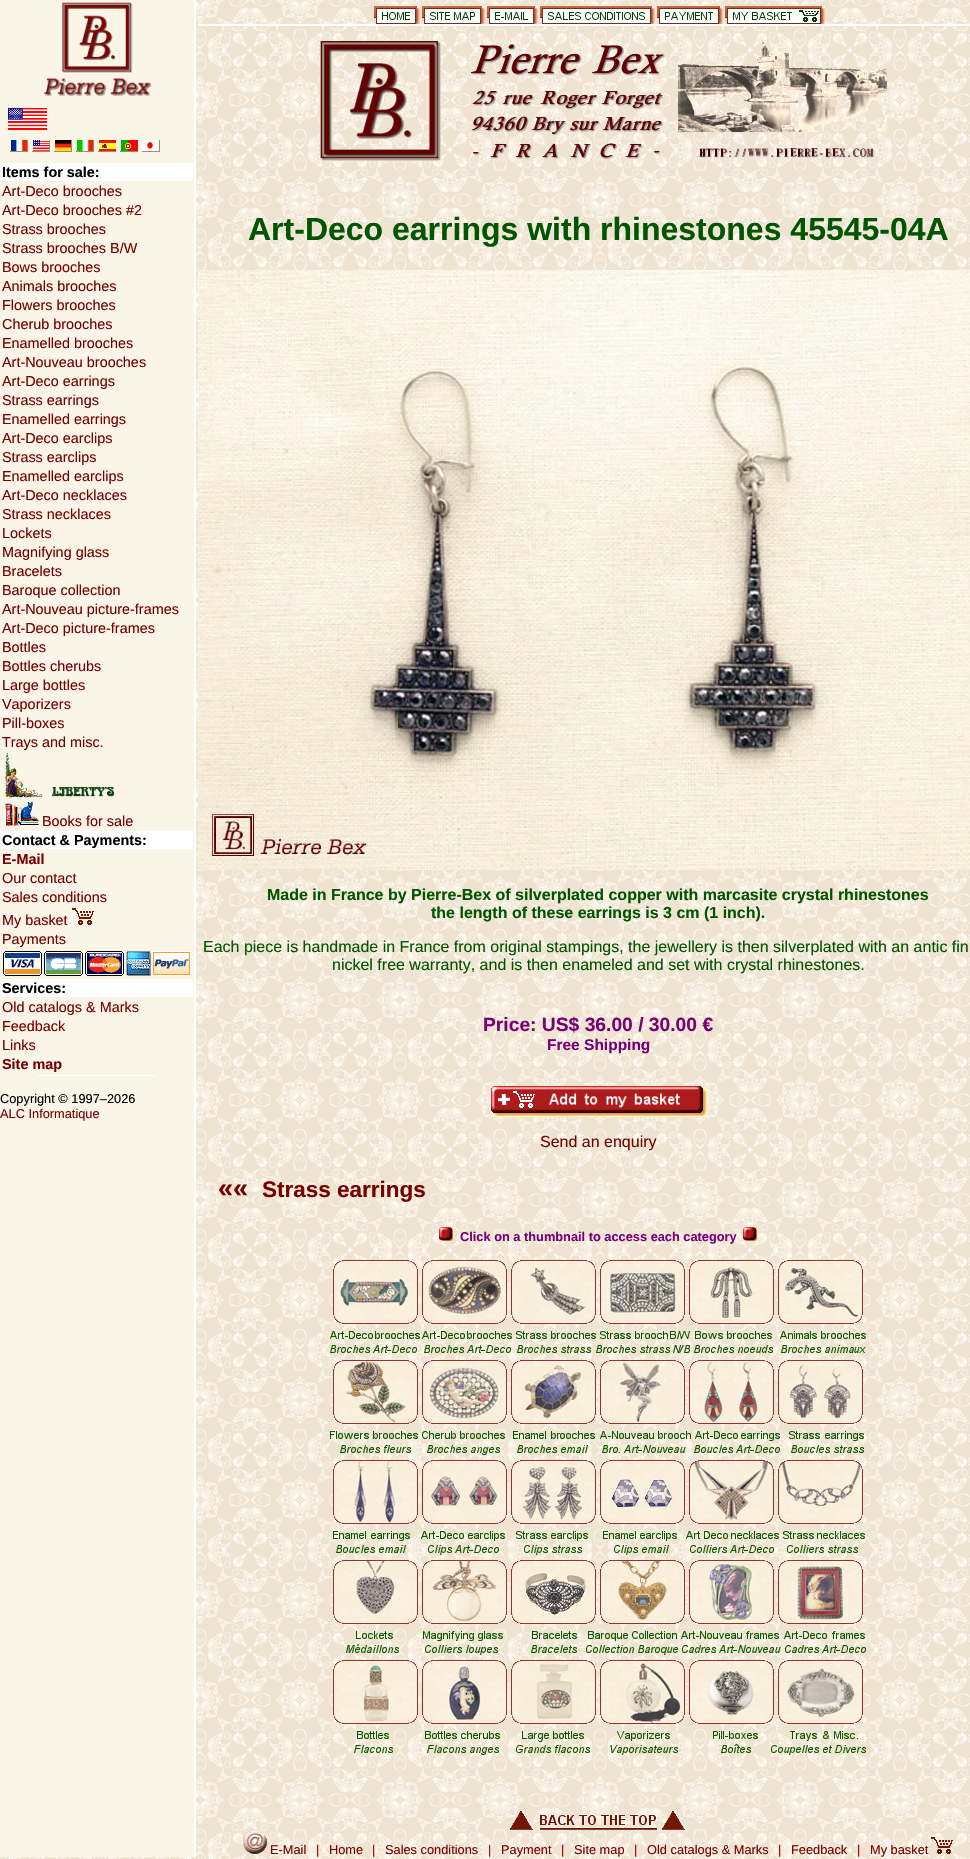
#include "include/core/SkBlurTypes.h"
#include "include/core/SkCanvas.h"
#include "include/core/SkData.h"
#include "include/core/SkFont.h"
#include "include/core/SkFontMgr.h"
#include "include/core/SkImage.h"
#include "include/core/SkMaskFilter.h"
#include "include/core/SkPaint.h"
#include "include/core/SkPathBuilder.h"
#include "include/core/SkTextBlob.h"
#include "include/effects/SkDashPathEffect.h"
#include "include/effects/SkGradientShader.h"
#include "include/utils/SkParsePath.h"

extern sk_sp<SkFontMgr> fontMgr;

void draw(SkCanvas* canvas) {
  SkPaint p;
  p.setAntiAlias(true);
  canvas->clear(SK_ColorWHITE);
  canvas->drawImageRect(SkImages::DeferredFromEncodedData(SkData::MakeFromFileName("images/1.png")), SkRect::MakeLTRB(0, 0, 970, 1859), SkSamplingOptions());
  p.setColor(SK_ColorWHITE);
  canvas->drawRect(SkRect::MakeLTRB(198, 24, 970, 26), p);
  canvas->drawImageRect(SkImages::DeferredFromEncodedData(SkData::MakeFromFileName("images/2.png")), SkRect::MakeLTRB(374, 6, 420, 24), SkSamplingOptions());
  canvas->drawImageRect(SkImages::DeferredFromEncodedData(SkData::MakeFromFileName("images/3.png")), SkRect::MakeLTRB(422, 6, 485, 24), SkSamplingOptions());
  canvas->drawImageRect(SkImages::DeferredFromEncodedData(SkData::MakeFromFileName("images/4.png")), SkRect::MakeLTRB(487, 6, 538, 24), SkSamplingOptions());
  canvas->drawImageRect(SkImages::DeferredFromEncodedData(SkData::MakeFromFileName("images/5.png")), SkRect::MakeLTRB(540, 6, 655, 24), SkSamplingOptions());
  canvas->drawImageRect(SkImages::DeferredFromEncodedData(SkData::MakeFromFileName("images/6.png")), SkRect::MakeLTRB(657, 6, 723, 24), SkSamplingOptions());
  canvas->drawImageRect(SkImages::DeferredFromEncodedData(SkData::MakeFromFileName("images/7.png")), SkRect::MakeLTRB(725, 6, 825, 24), SkSamplingOptions());
  canvas->drawImageRect(SkImages::DeferredFromEncodedData(SkData::MakeFromFileName("images/8.png")), SkRect::MakeLTRB(320, 39, 887, 161), SkSamplingOptions());
  p.setColor(SkColorSetRGB(251, 245, 232));
  canvas->drawRect(SkRect::MakeLTRB(0, 0, 194, 1857), p);
  p.setColor(SK_ColorWHITE);
  canvas->drawRect(SkRect::MakeLTRB(194, 0, 196, 1857), p);
  canvas->drawImageRect(SkImages::DeferredFromEncodedData(SkData::MakeFromFileName("images/9.png")), SkRect::MakeLTRB(44, 2, 152, 96), SkSamplingOptions());
  canvas->drawImageRect(SkImages::DeferredFromEncodedData(SkData::MakeFromFileName("images/10.png")), SkRect::MakeLTRB(8, 108, 47, 130), SkSamplingOptions());
  canvas->drawImageRect(SkImages::DeferredFromEncodedData(SkData::MakeFromFileName("images/11.png")), SkRect::MakeLTRB(10, 140, 28, 152), SkSamplingOptions());
  canvas->drawImageRect(SkImages::DeferredFromEncodedData(SkData::MakeFromFileName("images/12.png")), SkRect::MakeLTRB(32, 140, 50, 152), SkSamplingOptions());
  canvas->drawImageRect(SkImages::DeferredFromEncodedData(SkData::MakeFromFileName("images/13.png")), SkRect::MakeLTRB(54, 140, 72, 152), SkSamplingOptions());
  canvas->drawImageRect(SkImages::DeferredFromEncodedData(SkData::MakeFromFileName("images/14.png")), SkRect::MakeLTRB(76, 140, 94, 152), SkSamplingOptions());
  canvas->drawImageRect(SkImages::DeferredFromEncodedData(SkData::MakeFromFileName("images/15.png")), SkRect::MakeLTRB(98, 140, 116, 152), SkSamplingOptions());
  canvas->drawImageRect(SkImages::DeferredFromEncodedData(SkData::MakeFromFileName("images/16.png")), SkRect::MakeLTRB(120, 140, 138, 152), SkSamplingOptions());
  canvas->drawImageRect(SkImages::DeferredFromEncodedData(SkData::MakeFromFileName("images/17.png")), SkRect::MakeLTRB(142, 140, 160, 152), SkSamplingOptions());
  canvas->drawRect(SkRect::MakeLTRB(1, 163, 193, 181), p);
  canvas->drawImageRect(SkImages::DeferredFromEncodedData(SkData::MakeFromFileName("images/18.png")), SkRect::MakeLTRB(5, 753, 115, 798), SkSamplingOptions());
  canvas->drawImageRect(SkImages::DeferredFromEncodedData(SkData::MakeFromFileName("images/19.png")), SkRect::MakeLTRB(5, 801, 39, 826), SkSamplingOptions());
  canvas->drawRect(SkRect::MakeLTRB(1, 831, 193, 849), p);
  canvas->drawImageRect(SkImages::DeferredFromEncodedData(SkData::MakeFromFileName("images/20.png")), SkRect::MakeLTRB(72, 908, 94, 925), SkSamplingOptions());
  canvas->drawImageRect(SkImages::DeferredFromEncodedData(SkData::MakeFromFileName("images/21.png")), SkRect::MakeLTRB(3, 951, 191, 976), SkSamplingOptions());
  canvas->drawRect(SkRect::MakeLTRB(1, 979, 193, 997), p);
  canvas->drawRect(SkRect::MakeLTRB(37, 1075, 157, 1076), p);
  canvas->drawImageRect(SkImages::DeferredFromEncodedData(SkData::MakeFromFileName("images/22.png")), SkRect::MakeLTRB(198, 270, 970, 870), SkSamplingOptions());
  canvas->drawImageRect(SkImages::DeferredFromEncodedData(SkData::MakeFromFileName("images/23.png")), SkRect::MakeLTRB(491, 1086, 708, 1117), SkSamplingOptions());
  canvas->drawImageRect(SkImages::DeferredFromEncodedData(SkData::MakeFromFileName("images/24.png")), SkRect::MakeLTRB(439, 1227, 453, 1241), SkSamplingOptions());
  canvas->drawImageRect(SkImages::DeferredFromEncodedData(SkData::MakeFromFileName("images/25.png")), SkRect::MakeLTRB(743, 1227, 757, 1241), SkSamplingOptions());
  canvas->drawImageRect(SkImages::DeferredFromEncodedData(SkData::MakeFromFileName("images/26.png")), SkRect::MakeLTRB(333, 1260, 418, 1324), SkSamplingOptions());
  canvas->drawImageRect(SkImages::DeferredFromEncodedData(SkData::MakeFromFileName("images/27.png")), SkRect::MakeLTRB(422, 1260, 507, 1324), SkSamplingOptions());
  canvas->drawImageRect(SkImages::DeferredFromEncodedData(SkData::MakeFromFileName("images/28.png")), SkRect::MakeLTRB(511, 1260, 596, 1324), SkSamplingOptions());
  canvas->drawImageRect(SkImages::DeferredFromEncodedData(SkData::MakeFromFileName("images/29.png")), SkRect::MakeLTRB(600, 1260, 685, 1324), SkSamplingOptions());
  canvas->drawImageRect(SkImages::DeferredFromEncodedData(SkData::MakeFromFileName("images/30.png")), SkRect::MakeLTRB(689, 1260, 774, 1324), SkSamplingOptions());
  canvas->drawImageRect(SkImages::DeferredFromEncodedData(SkData::MakeFromFileName("images/31.png")), SkRect::MakeLTRB(778, 1260, 863, 1324), SkSamplingOptions());
  canvas->drawImageRect(SkImages::DeferredFromEncodedData(SkData::MakeFromFileName("images/32.png")), SkRect::MakeLTRB(330, 1331, 866, 1353), SkSamplingOptions());
  canvas->drawImageRect(SkImages::DeferredFromEncodedData(SkData::MakeFromFileName("images/33.png")), SkRect::MakeLTRB(333, 1360, 418, 1424), SkSamplingOptions());
  canvas->drawImageRect(SkImages::DeferredFromEncodedData(SkData::MakeFromFileName("images/34.png")), SkRect::MakeLTRB(422, 1360, 507, 1424), SkSamplingOptions());
  canvas->drawImageRect(SkImages::DeferredFromEncodedData(SkData::MakeFromFileName("images/35.png")), SkRect::MakeLTRB(511, 1360, 596, 1424), SkSamplingOptions());
  canvas->drawImageRect(SkImages::DeferredFromEncodedData(SkData::MakeFromFileName("images/36.png")), SkRect::MakeLTRB(600, 1360, 685, 1424), SkSamplingOptions());
  canvas->drawImageRect(SkImages::DeferredFromEncodedData(SkData::MakeFromFileName("images/37.png")), SkRect::MakeLTRB(689, 1360, 774, 1424), SkSamplingOptions());
  canvas->drawImageRect(SkImages::DeferredFromEncodedData(SkData::MakeFromFileName("images/38.png")), SkRect::MakeLTRB(778, 1360, 863, 1424), SkSamplingOptions());
  canvas->drawImageRect(SkImages::DeferredFromEncodedData(SkData::MakeFromFileName("images/39.png")), SkRect::MakeLTRB(330, 1431, 864, 1455), SkSamplingOptions());
  canvas->drawImageRect(SkImages::DeferredFromEncodedData(SkData::MakeFromFileName("images/40.png")), SkRect::MakeLTRB(333, 1460, 418, 1524), SkSamplingOptions());
  canvas->drawImageRect(SkImages::DeferredFromEncodedData(SkData::MakeFromFileName("images/41.png")), SkRect::MakeLTRB(422, 1460, 507, 1524), SkSamplingOptions());
  canvas->drawImageRect(SkImages::DeferredFromEncodedData(SkData::MakeFromFileName("images/42.png")), SkRect::MakeLTRB(511, 1460, 596, 1524), SkSamplingOptions());
  canvas->drawImageRect(SkImages::DeferredFromEncodedData(SkData::MakeFromFileName("images/43.png")), SkRect::MakeLTRB(600, 1460, 685, 1524), SkSamplingOptions());
  canvas->drawImageRect(SkImages::DeferredFromEncodedData(SkData::MakeFromFileName("images/44.png")), SkRect::MakeLTRB(689, 1460, 774, 1524), SkSamplingOptions());
  canvas->drawImageRect(SkImages::DeferredFromEncodedData(SkData::MakeFromFileName("images/45.png")), SkRect::MakeLTRB(778, 1460, 863, 1524), SkSamplingOptions());
  canvas->drawImageRect(SkImages::DeferredFromEncodedData(SkData::MakeFromFileName("images/46.png")), SkRect::MakeLTRB(333, 1531, 865, 1555), SkSamplingOptions());
  canvas->drawImageRect(SkImages::DeferredFromEncodedData(SkData::MakeFromFileName("images/47.png")), SkRect::MakeLTRB(333, 1560, 418, 1624), SkSamplingOptions());
  canvas->drawImageRect(SkImages::DeferredFromEncodedData(SkData::MakeFromFileName("images/48.png")), SkRect::MakeLTRB(422, 1560, 507, 1624), SkSamplingOptions());
  canvas->drawImageRect(SkImages::DeferredFromEncodedData(SkData::MakeFromFileName("images/49.png")), SkRect::MakeLTRB(511, 1560, 596, 1624), SkSamplingOptions());
  canvas->drawImageRect(SkImages::DeferredFromEncodedData(SkData::MakeFromFileName("images/50.png")), SkRect::MakeLTRB(600, 1560, 685, 1624), SkSamplingOptions());
  canvas->drawImageRect(SkImages::DeferredFromEncodedData(SkData::MakeFromFileName("images/51.png")), SkRect::MakeLTRB(689, 1560, 774, 1624), SkSamplingOptions());
  canvas->drawImageRect(SkImages::DeferredFromEncodedData(SkData::MakeFromFileName("images/52.png")), SkRect::MakeLTRB(778, 1560, 863, 1624), SkSamplingOptions());
  canvas->drawImageRect(SkImages::DeferredFromEncodedData(SkData::MakeFromFileName("images/53.png")), SkRect::MakeLTRB(346, 1631, 866, 1655), SkSamplingOptions());
  canvas->drawImageRect(SkImages::DeferredFromEncodedData(SkData::MakeFromFileName("images/54.png")), SkRect::MakeLTRB(333, 1660, 418, 1724), SkSamplingOptions());
  canvas->drawImageRect(SkImages::DeferredFromEncodedData(SkData::MakeFromFileName("images/55.png")), SkRect::MakeLTRB(422, 1660, 507, 1724), SkSamplingOptions());
  canvas->drawImageRect(SkImages::DeferredFromEncodedData(SkData::MakeFromFileName("images/56.png")), SkRect::MakeLTRB(511, 1660, 596, 1724), SkSamplingOptions());
  canvas->drawImageRect(SkImages::DeferredFromEncodedData(SkData::MakeFromFileName("images/57.png")), SkRect::MakeLTRB(600, 1660, 685, 1724), SkSamplingOptions());
  canvas->drawImageRect(SkImages::DeferredFromEncodedData(SkData::MakeFromFileName("images/58.png")), SkRect::MakeLTRB(689, 1660, 774, 1724), SkSamplingOptions());
  canvas->drawImageRect(SkImages::DeferredFromEncodedData(SkData::MakeFromFileName("images/59.png")), SkRect::MakeLTRB(778, 1660, 863, 1724), SkSamplingOptions());
  canvas->drawImageRect(SkImages::DeferredFromEncodedData(SkData::MakeFromFileName("images/60.png")), SkRect::MakeLTRB(354, 1731, 866, 1755), SkSamplingOptions());
  canvas->drawImageRect(SkImages::DeferredFromEncodedData(SkData::MakeFromFileName("images/61.png")), SkRect::MakeLTRB(510, 1810, 686, 1830), SkSamplingOptions());
  canvas->drawImageRect(SkImages::DeferredFromEncodedData(SkData::MakeFromFileName("images/62.png")), SkRect::MakeLTRB(243, 1830, 267, 1854), SkSamplingOptions());
  canvas->drawImageRect(SkImages::DeferredFromEncodedData(SkData::MakeFromFileName("images/63.png")), SkRect::MakeLTRB(931, 1837, 953, 1854), SkSamplingOptions());
  SkFont font1(fontMgr->matchFamilyStyle("Liberation Sans", SkFontStyle::Bold()), 14.4f);
  font1.setSubpixel(true);
  p.setColor(SK_ColorBLACK);
  canvas->drawString("Items for sale:", 2, 177, font1, p);
  SkFont font2(fontMgr->matchFamilyStyle("Liberation Sans", SkFontStyle::Normal()), 14.4f);
  font2.setSubpixel(true);
  p.setColor(SkColorSetRGB(119, 0, 0));
  canvas->drawString("Art-Deco brooches", 2, 196, font2, p);
  canvas->drawString("Art-Deco brooches #2", 2, 215, font2, p);
  canvas->drawString("Strass brooches", 2, 234, font2, p);
  canvas->drawString("Strass brooches B/W", 2, 253, font2, p);
  canvas->drawString("Bows brooches", 2, 272, font2, p);
  canvas->drawString("Animals brooches", 2, 291, font2, p);
  canvas->drawString("Flowers brooches", 2, 310, font2, p);
  canvas->drawString("Cherub brooches", 2, 329, font2, p);
  canvas->drawString("Enamelled brooches", 2, 348, font2, p);
  canvas->drawString("Art-Nouveau brooches", 2, 367, font2, p);
  canvas->drawString("Art-Deco earrings", 2, 386, font2, p);
  canvas->drawString("Strass earrings", 2, 405, font2, p);
  canvas->drawString("Enamelled earrings", 2, 424, font2, p);
  canvas->drawString("Art-Deco earclips", 2, 443, font2, p);
  canvas->drawString("Strass earclips", 2, 462, font2, p);
  canvas->drawString("Enamelled earclips", 2, 481, font2, p);
  canvas->drawString("Art-Deco necklaces", 2, 500, font2, p);
  canvas->drawString("Strass necklaces", 2, 519, font2, p);
  canvas->drawString("Lockets", 2, 538, font2, p);
  canvas->drawString("Magnifying glass", 2, 557, font2, p);
  canvas->drawString("Bracelets", 2, 576, font2, p);
  canvas->drawString("Baroque collection", 2, 595, font2, p);
  canvas->drawString("Art-Nouveau picture-frames", 2, 614, font2, p);
  canvas->drawString("Art-Deco picture-frames", 2, 633, font2, p);
  canvas->drawString("Bottles", 2, 652, font2, p);
  canvas->drawString("Bottles cherubs", 2, 671, font2, p);
  canvas->drawString("Large bottles", 2, 690, font2, p);
  canvas->drawString("Vaporizers", 2, 709, font2, p);
  canvas->drawString("Pill-boxes", 2, 728, font2, p);
  canvas->drawString("Trays and misc.", 2, 747, font2, p);
  canvas->drawString("Books for sale", 42, 826, font2, p);
  p.setColor(SK_ColorBLACK);
  canvas->drawString("Contact & Payments:", 2, 845, font1, p);
  p.setColor(SkColorSetRGB(119, 0, 0));
  canvas->drawString("E-Mail", 2, 864, font1, p);
  canvas->drawString("Our contact", 2, 883, font2, p);
  canvas->drawString("Sales conditions", 2, 902, font2, p);
  canvas->drawString("My basket", 2, 925, font2, p);
  canvas->drawString("Payments", 2, 944, font2, p);
  p.setColor(SK_ColorBLACK);
  canvas->drawString("Services:", 2, 993, font1, p);
  p.setColor(SkColorSetRGB(119, 0, 0));
  canvas->drawString("Old catalogs & Marks", 2, 1012, font2, p);
  canvas->drawString("Feedback", 2, 1031, font2, p);
  canvas->drawString("Links", 2, 1050, font2, p);
  canvas->drawString("Site map", 2, 1069, font1, p);
  SkFont font3(fontMgr->matchFamilyStyle("Liberation Sans", SkFontStyle::Normal()), 12.8f);
  font3.setSubpixel(true);
  p.setColor(SK_ColorBLACK);
  canvas->drawString("Copyright © 1997‒2026", 0, 1103, font3, p);
  p.setColor(SkColorSetRGB(119, 0, 0));
  canvas->drawString("ALC Informatique", 0, 1118, font3, p);
  SkFont font4(fontMgr->matchFamilyStyle("Liberation Sans", SkFontStyle::Bold()), 32);
  font4.setSubpixel(true);
  p.setColor(SkColorSetRGB(0, 85, 0));
  canvas->drawString("Art-Deco earrings with rhinestones 45545-04A", 248, 240, font4, p);
  SkFont font5(fontMgr->matchFamilyStyle("Liberation Sans", SkFontStyle::Bold()), 16);
  font5.setSubpixel(true);
  canvas->drawString("Made in France by Pierre-Bex of silverplated copper with marcasite crystal rhinestones", 267, 900, font5, p);
  canvas->drawString("the length of these earrings is 3 cm (1 inch).", 431, 918, font5, p);
  SkFont font6(fontMgr->matchFamilyStyle("Liberation Sans", SkFontStyle::Normal()), 16);
  font6.setSubpixel(true);
  canvas->drawString("Each piece is handmade in France from original stampings, the jewellery is then silverplated with an antic fin", 203, 952, font6, p);
  canvas->drawString("nickel free warranty, and is then enameled and set with crystal rhinestones.", 332, 970, font6, p);
  SkFont font7(fontMgr->matchFamilyStyle("Liberation Sans", SkFontStyle::Bold()), 19.25f);
  font7.setSubpixel(true);
  p.setColor(SkColorSetRGB(119, 0, 119));
  canvas->drawString("Price: US$ 36.00 / 30.00 €", 483, 1031, font7, p);
  SkFont font8(fontMgr->matchFamilyStyle("Liberation Sans", SkFontStyle::Bold()), 15.5f);
  font8.setSubpixel(true);
  canvas->drawString("Free Shipping", 547, 1050, font8, p);
  p.setColor(SkColorSetRGB(119, 0, 0));
  canvas->drawString("Send an enquiry", 540, 1147, font6, p);
  SkFont font9(fontMgr->matchFamilyStyle("Liberation Sans", SkFontStyle::Bold()), 27);
  font9.setSubpixel(true);
  canvas->drawString("««", 218, 1197, font9, p);
  SkFont font10(fontMgr->matchFamilyStyle("Liberation Sans", SkFontStyle::Bold()), 22.5f);
  font10.setSubpixel(true);
  canvas->drawString("Strass earrings", 262, 1197, font10, p);
  SkFont font11(fontMgr->matchFamilyStyle("Liberation Sans", SkFontStyle::Bold()), 12.8f);
  font11.setSubpixel(true);
  p.setColor(SkColorSetRGB(119, 0, 119));
  canvas->drawString("Click on a thumbnail to access each category", 460, 1241, font11, p);
  p.setColor(SkColorSetRGB(119, 0, 0));
  canvas->drawString("E-Mail", 270, 1854, font3, p);
  p.setColor(SkColorSetRGB(153, 0, 0));
  canvas->drawString("|", 316, 1854, font3, p);
  p.setColor(SkColorSetRGB(119, 0, 0));
  canvas->drawString("Home", 329, 1854, font3, p);
  p.setColor(SkColorSetRGB(153, 0, 0));
  canvas->drawString("|", 372, 1854, font3, p);
  p.setColor(SkColorSetRGB(119, 0, 0));
  canvas->drawString("Sales conditions", 385, 1854, font3, p);
  p.setColor(SkColorSetRGB(153, 0, 0));
  canvas->drawString("|", 488, 1854, font3, p);
  p.setColor(SkColorSetRGB(119, 0, 0));
  canvas->drawString("Payment", 501, 1854, font3, p);
  p.setColor(SkColorSetRGB(153, 0, 0));
  canvas->drawString("|", 561, 1854, font3, p);
  p.setColor(SkColorSetRGB(119, 0, 0));
  canvas->drawString("Site map", 574, 1854, font3, p);
  p.setColor(SkColorSetRGB(153, 0, 0));
  canvas->drawString("|", 634, 1854, font3, p);
  p.setColor(SkColorSetRGB(119, 0, 0));
  canvas->drawString("Old catalogs & Marks", 647, 1854, font3, p);
  p.setColor(SkColorSetRGB(153, 0, 0));
  canvas->drawString("|", 778, 1854, font3, p);
  p.setColor(SkColorSetRGB(119, 0, 0));
  canvas->drawString("Feedback", 791, 1854, font3, p);
  p.setColor(SkColorSetRGB(153, 0, 0));
  canvas->drawString("|", 857, 1854, font3, p);
  p.setColor(SkColorSetRGB(119, 0, 0));
  canvas->drawString("My basket", 870, 1854, font3, p);
}
